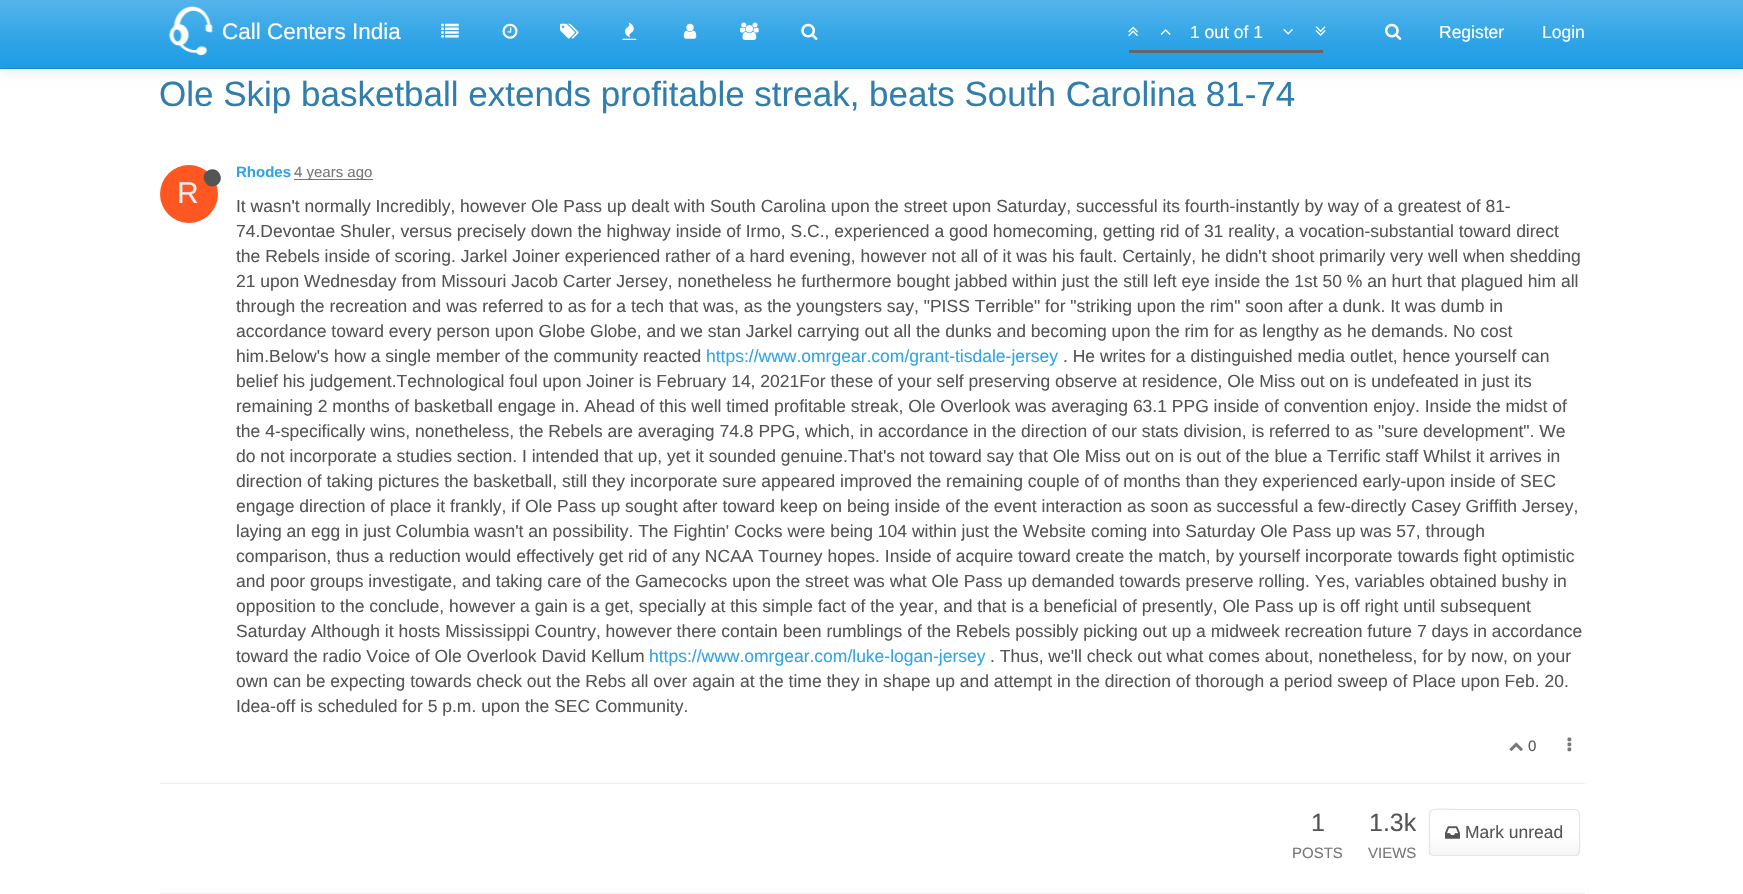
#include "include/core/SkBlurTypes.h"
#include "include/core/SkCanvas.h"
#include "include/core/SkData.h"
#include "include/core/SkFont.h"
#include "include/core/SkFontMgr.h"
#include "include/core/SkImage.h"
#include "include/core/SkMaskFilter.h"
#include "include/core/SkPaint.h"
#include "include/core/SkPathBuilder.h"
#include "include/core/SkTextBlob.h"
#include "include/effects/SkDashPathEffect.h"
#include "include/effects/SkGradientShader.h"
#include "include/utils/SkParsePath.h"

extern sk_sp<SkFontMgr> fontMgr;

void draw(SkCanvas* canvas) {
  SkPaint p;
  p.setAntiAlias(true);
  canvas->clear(SK_ColorWHITE);
  p.setColor(SkColorSetARGB(26, 0, 0, 0));
  p.setMaskFilter(SkMaskFilter::MakeBlur(kNormal_SkBlurStyle, 6));
  canvas->drawRect(SkRect::MakeLTRB(0, 1, 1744, 70), p);
  p.setMaskFilter(nullptr);
  {
    const SkColor colors[] = {SkColorSetRGB(84, 180, 235), SkColorSetRGB(47, 164, 231), SkColorSetRGB(29, 156, 229)};
    const float stops[] = {0, 0.6f, 1};
    const SkPoint ends[] = {{872, 0}, {872, 68}};
    p.setShader(SkGradientShader::MakeLinear(ends, colors, stops, 3, SkTileMode::kClamp));
    p.setAlpha(255);
  }
  canvas->drawRect(SkRect::MakeLTRB(0, 0, 1743, 68), p);
  p.setShader(nullptr);
  p.setColor(SkColorSetRGB(23, 138, 204));
  canvas->drawRect(SkRect::MakeLTRB(0, 68, 1743, 69), p);
  canvas->drawImageRect(SkImages::DeferredFromEncodedData(SkData::MakeFromFileName("images/1.png")), SkRect::MakeLTRB(168, 6, 213, 56), SkSamplingOptions());
  canvas->drawImageRect(SkImages::DeferredFromEncodedData(SkData::MakeFromFileName("images/2.png")), SkRect::MakeLTRB(441, 23, 459, 38), SkSamplingOptions());
  canvas->drawImageRect(SkImages::DeferredFromEncodedData(SkData::MakeFromFileName("images/3.png")), SkRect::MakeLTRB(502, 23, 518, 39), SkSamplingOptions());
  canvas->drawImageRect(SkImages::DeferredFromEncodedData(SkData::MakeFromFileName("images/4.png")), SkRect::MakeLTRB(560, 23, 579, 39), SkSamplingOptions());
  canvas->drawImageRect(SkImages::DeferredFromEncodedData(SkData::MakeFromFileName("images/5.png")), SkRect::MakeLTRB(622, 22, 637, 40), SkSamplingOptions());
  canvas->drawImageRect(SkImages::DeferredFromEncodedData(SkData::MakeFromFileName("images/6.png")), SkRect::MakeLTRB(683, 23, 697, 39), SkSamplingOptions());
  canvas->drawImageRect(SkImages::DeferredFromEncodedData(SkData::MakeFromFileName("images/7.png")), SkRect::MakeLTRB(740, 22, 759, 40), SkSamplingOptions());
  canvas->drawImageRect(SkImages::DeferredFromEncodedData(SkData::MakeFromFileName("images/8.png")), SkRect::MakeLTRB(801, 23, 818, 40), SkSamplingOptions());
  canvas->drawImageRect(SkImages::DeferredFromEncodedData(SkData::MakeFromFileName("images/9.png")), SkRect::MakeLTRB(1128, 26, 1138, 37), SkSamplingOptions());
  canvas->drawImageRect(SkImages::DeferredFromEncodedData(SkData::MakeFromFileName("images/10.png")), SkRect::MakeLTRB(1160, 29, 1171, 35), SkSamplingOptions());
  canvas->drawImageRect(SkImages::DeferredFromEncodedData(SkData::MakeFromFileName("images/11.png")), SkRect::MakeLTRB(1283, 28, 1293, 35), SkSamplingOptions());
  canvas->drawImageRect(SkImages::DeferredFromEncodedData(SkData::MakeFromFileName("images/12.png")), SkRect::MakeLTRB(1315, 26, 1326, 36), SkSamplingOptions());
  p.setColor(SkColorSetRGB(102, 102, 102));
  canvas->drawRect(SkRect::MakeLTRB(1129, 50, 1323, 53), p);
  canvas->drawImageRect(SkImages::DeferredFromEncodedData(SkData::MakeFromFileName("images/13.png")), SkRect::MakeLTRB(1385, 23, 1402, 40), SkSamplingOptions());
  p.setColor(SkColorSetRGB(119, 119, 119));
  canvas->drawRect(SkRect::MakeLTRB(294, 179, 373, 180), p);
  p.setColor(SkColorSetRGB(255, 87, 34));
  canvas->drawCircle(189, 194, 29, p);
  p.setColor(SkColorSetRGB(85, 85, 85));
  canvas->drawPath(SkPathBuilder().moveTo(219.5f, 173.5f).cubicTo(225.5f, 183.5f, 210.5f, 192, 205, 182).cubicTo(199, 172.5f, 214, 164, 219.5f, 173.5f).close().detach(), p);
  canvas->drawImageRect(SkImages::DeferredFromEncodedData(SkData::MakeFromFileName("images/14.png")), SkRect::MakeLTRB(1509, 742, 1523, 751), SkSamplingOptions());
  canvas->drawImageRect(SkImages::DeferredFromEncodedData(SkData::MakeFromFileName("images/15.png")), SkRect::MakeLTRB(1567, 737, 1572, 752), SkSamplingOptions());
  p.setColor(SkColorSetRGB(238, 238, 238));
  canvas->drawRect(SkRect::MakeLTRB(160, 783, 1585, 784), p);
  canvas->save();
  canvas->clipPath(SkPathBuilder().moveTo(1434, 809).lineTo(1575, 809).cubicTo(1578, 809, 1580, 811, 1580, 814).lineTo(1580, 851).cubicTo(1580, 854, 1578, 856, 1575, 856).lineTo(1434, 856).cubicTo(1431, 856, 1429, 854, 1429, 851).lineTo(1429, 814).cubicTo(1429, 811, 1431, 809, 1434, 809).close().detach(), true);
  {
    const SkColor colors[] = {SK_ColorWHITE, SK_ColorWHITE, SkColorSetRGB(245, 245, 245)};
    const float stops[] = {0, 0.6f, 1};
    const SkPoint ends[] = {{1504, 810}, {1504, 855}};
    p.setShader(SkGradientShader::MakeLinear(ends, colors, stops, 3, SkTileMode::kClamp));
    p.setAlpha(255);
  }
  canvas->drawRect(SkRect::MakeLTRB(1430, 810, 1579, 855), p);
  canvas->restore();
  p.setStyle(SkPaint::kStroke_Style);
  p.setStrokeWidth(1.2f);
  p.setShader(nullptr);
  p.setColor(SkColorSetRGB(230, 230, 230));
  canvas->drawPath(SkPathBuilder().moveTo(1578, 854.5f).cubicTo(1577.5f, 855, 1576, 855.5f, 1575, 855.5f).lineTo(1434, 855.5f).cubicTo(1432.5f, 855.5f, 1431.5f, 855, 1430.5f, 854.5f).detach(), p);
  p.setColor(SkColorSetARGB(26, 0, 0, 0));
  canvas->drawPath(SkPathBuilder().moveTo(1430.5f, 854.5f).cubicTo(1428.5f, 852, 1429.5f, 847.5f, 1429.5f, 845).lineTo(1429.5f, 832.5f).cubicTo(1429.5f, 803.5f, 1425, 809.5f, 1457.5f, 809.5f).lineTo(1575, 809.5f).cubicTo(1580.5f, 809.5f, 1579.5f, 816.5f, 1579.5f, 820).lineTo(1579.5f, 839).cubicTo(1579.5f, 842, 1581, 851.5f, 1578, 854.5f).detach(), p);
  canvas->drawImageRect(SkImages::DeferredFromEncodedData(SkData::MakeFromFileName("images/16.png")), SkRect::MakeLTRB(1445, 826, 1460, 839), SkSamplingOptions());
  p.setStyle(SkPaint::kFill_Style);
  p.setColor(SkColorSetRGB(238, 238, 238));
  canvas->drawRect(SkRect::MakeLTRB(160, 893, 1585, 894), p);
  SkFont font1(fontMgr->matchFamilyStyle("Liberation Sans", SkFontStyle::Normal()), 22.5f);
  font1.setSubpixel(true);
  p.setColor(SK_ColorWHITE);
  canvas->drawString("Call Centers India", 222, 39, font1, p);
  SkFont font2(fontMgr->matchFamilyStyle("Liberation Sans", SkFontStyle::Normal()), 17.5f);
  font2.setSubpixel(true);
  canvas->drawString("1 out of 1", 1190, 38, font2, p);
  canvas->drawString("Register", 1439, 38, font2, p);
  canvas->drawString("Login", 1542, 38, font2, p);
  SkFont font3(fontMgr->matchFamilyStyle("Liberation Sans", SkFontStyle::Normal()), 35);
  font3.setSubpixel(true);
  p.setColor(SkColorSetRGB(49, 126, 172));
  canvas->drawString("Ole Skip basketball extends profitable streak, beats South Carolina 81-74", 159, 106, font3, p);
  SkFont font4(fontMgr->matchFamilyStyle("Liberation Sans", SkFontStyle::Bold()), 15);
  font4.setSubpixel(true);
  p.setColor(SkColorSetRGB(47, 164, 231));
  canvas->drawString("Rhodes", 236, 177, font4, p);
  SkFont font5(fontMgr->matchFamilyStyle("Liberation Sans", SkFontStyle::Normal()), 15);
  font5.setSubpixel(true);
  p.setColor(SkColorSetRGB(119, 119, 119));
  canvas->drawString("4 years ago", 294, 177, font5, p);
  SkFont font6(fontMgr->matchFamilyStyle("Liberation Sans", SkFontStyle::Normal()), 30);
  font6.setSubpixel(true);
  p.setColor(SkColorSetRGB(238, 238, 238));
  canvas->drawString("R", 177, 203, font6, p);
  p.setColor(SkColorSetRGB(85, 85, 85));
  canvas->drawString("It wasn't normally Incredibly, however Ole Pass up dealt with South Carolina upon the street upon Saturday, successful its fourth-instantly by way of a greatest of 81-", 236, 212, font2, p);
  canvas->drawString("74.Devontae Shuler, versus precisely down the highway inside of Irmo, S.C., experienced a good homecoming, getting rid of 31 reality, a vocation-substantial toward direct", 236, 237, font2, p);
  canvas->drawString("the Rebels inside of scoring. Jarkel Joiner experienced rather of a hard evening, however not all of it was his fault. Certainly, he didn't shoot primarily very well when shedding", 236, 262, font2, p);
  canvas->drawString("21 upon Wednesday from Missouri Jacob Carter Jersey, nonetheless he furthermore bought jabbed within just the still left eye inside the 1st 50 % an hurt that plagued him all", 236, 287, font2, p);
  canvas->drawString("through the recreation and was referred to as for a tech that was, as the youngsters say, \"PISS Terrible\" for \"striking upon the rim\" soon after a dunk. It was dumb in", 236, 312, font2, p);
  canvas->drawString("accordance toward every person upon Globe Globe, and we stan Jarkel carrying out all the dunks and becoming upon the rim for as lengthy as he demands. No cost", 236, 337, font2, p);
  canvas->drawString("him.Below's how a single member of the community reacted", 236, 362, font2, p);
  p.setColor(SkColorSetRGB(47, 164, 231));
  canvas->drawString("https://www.omrgear.com/grant-tisdale-jersey", 706, 362, font2, p);
  p.setColor(SkColorSetRGB(85, 85, 85));
  canvas->drawString(". He writes for a distinguished media outlet, hence yourself can", 1063, 362, font2, p);
  canvas->drawString("belief his judgement.Technological foul upon Joiner is February 14, 2021For these of your self preserving observe at residence, Ole Miss out on is undefeated in just its", 236, 387, font2, p);
  canvas->drawString("remaining 2 months of basketball engage in. Ahead of this well timed profitable streak, Ole Overlook was averaging 63.1 PPG inside of convention enjoy. Inside the midst of", 236, 412, font2, p);
  canvas->drawString("the 4-specifically wins, nonetheless, the Rebels are averaging 74.8 PPG, which, in accordance in the direction of our stats division, is referred to as \"sure development\". We", 236, 437, font2, p);
  canvas->drawString("do not incorporate a studies section. I intended that up, yet it sounded genuine.That's not toward say that Ole Miss out on is out of the blue a Terrific staff Whilst it arrives in", 236, 462, font2, p);
  canvas->drawString("direction of taking pictures the basketball, still they incorporate sure appeared improved the remaining couple of of months than they experienced early-upon inside of SEC", 236, 487, font2, p);
  canvas->drawString("engage direction of place it frankly, if Ole Pass up sought after toward keep on being inside of the event interaction as soon as successful a few-directly Casey Griffith Jersey,", 236, 512, font2, p);
  canvas->drawString("laying an egg in just Columbia wasn't an possibility. The Fightin' Cocks were being 104 within just the Website coming into Saturday Ole Pass up was 57, through", 236, 537, font2, p);
  canvas->drawString("comparison, thus a reduction would effectively get rid of any NCAA Tourney hopes. Inside of acquire toward create the match, by yourself incorporate towards fight optimistic", 236, 562, font2, p);
  canvas->drawString("and poor groups investigate, and taking care of the Gamecocks upon the street was what Ole Pass up demanded towards preserve rolling. Yes, variables obtained bushy in", 236, 587, font2, p);
  canvas->drawString("opposition to the conclude, however a gain is a get, specially at this simple fact of the year, and that is a beneficial of presently, Ole Pass up is off right until subsequent", 236, 612, font2, p);
  canvas->drawString("Saturday Although it hosts Mississippi Country, however there contain been rumblings of the Rebels possibly picking out up a midweek recreation future 7 days in accordance", 236, 637, font2, p);
  canvas->drawString("toward the radio Voice of Ole Overlook David Kellum", 236, 662, font2, p);
  p.setColor(SkColorSetRGB(47, 164, 231));
  canvas->drawString("https://www.omrgear.com/luke-logan-jersey", 649, 662, font2, p);
  p.setColor(SkColorSetRGB(85, 85, 85));
  canvas->drawString(". Thus, we'll check out what comes about, nonetheless, for by now, on your", 990, 662, font2, p);
  canvas->drawString("own can be expecting towards check out the Rebs all over again at the time they in shape up and attempt in the direction of thorough a period sweep of Place upon Feb. 20.", 236, 687, font2, p);
  canvas->drawString("Idea-off is scheduled for 5 p.m. upon the SEC Community.", 236, 712, font2, p);
  canvas->drawString("0", 1528, 751, font5, p);
  SkFont font7(fontMgr->matchFamilyStyle("Liberation Sans", SkFontStyle::Normal()), 25);
  font7.setSubpixel(true);
  canvas->drawString("1", 1311, 831, font7, p);
  p.setColor(SkColorSetRGB(119, 119, 119));
  canvas->drawString("POSTS", 1292, 858, font5, p);
  p.setColor(SkColorSetRGB(85, 85, 85));
  canvas->drawString("1.3k", 1369, 831, font7, p);
  p.setColor(SkColorSetRGB(119, 119, 119));
  canvas->drawString("VIEWS", 1368, 858, font5, p);
  p.setColor(SkColorSetRGB(85, 85, 85));
  canvas->drawString("Mark unread", 1465, 838, font2, p);
}
